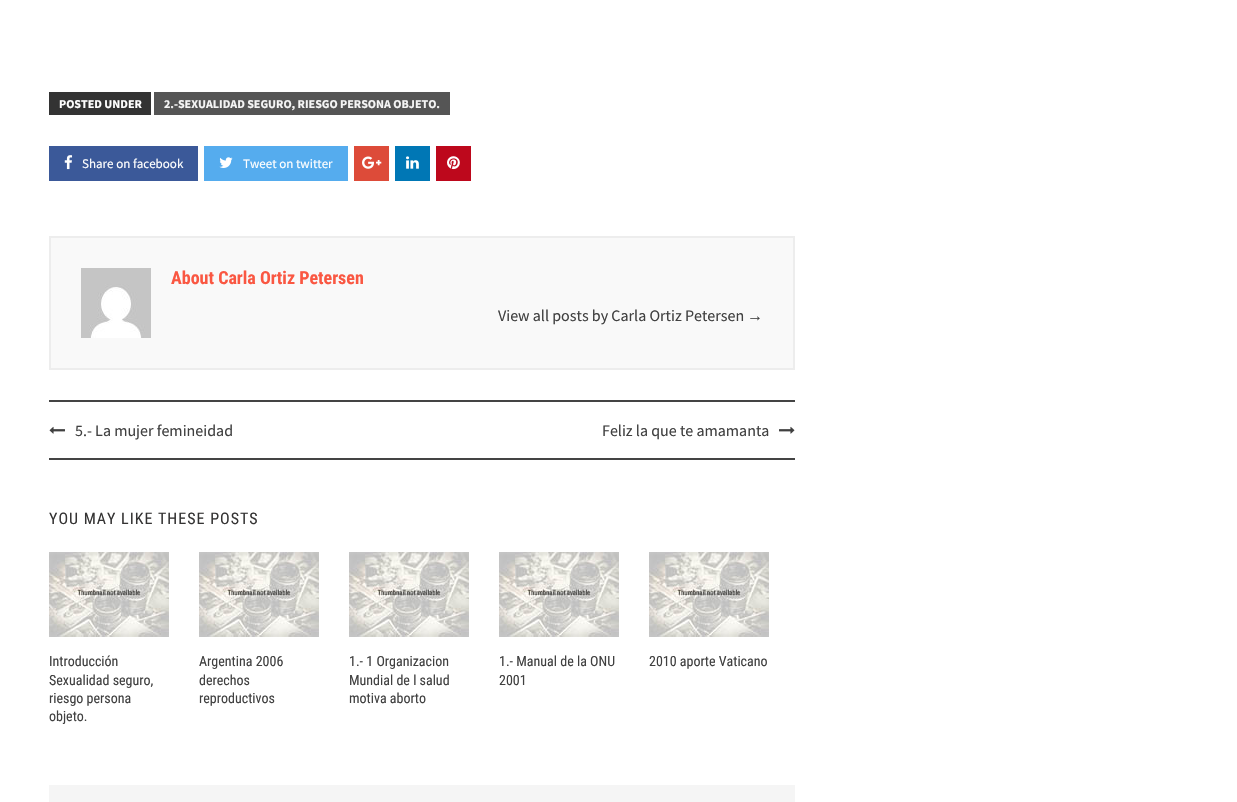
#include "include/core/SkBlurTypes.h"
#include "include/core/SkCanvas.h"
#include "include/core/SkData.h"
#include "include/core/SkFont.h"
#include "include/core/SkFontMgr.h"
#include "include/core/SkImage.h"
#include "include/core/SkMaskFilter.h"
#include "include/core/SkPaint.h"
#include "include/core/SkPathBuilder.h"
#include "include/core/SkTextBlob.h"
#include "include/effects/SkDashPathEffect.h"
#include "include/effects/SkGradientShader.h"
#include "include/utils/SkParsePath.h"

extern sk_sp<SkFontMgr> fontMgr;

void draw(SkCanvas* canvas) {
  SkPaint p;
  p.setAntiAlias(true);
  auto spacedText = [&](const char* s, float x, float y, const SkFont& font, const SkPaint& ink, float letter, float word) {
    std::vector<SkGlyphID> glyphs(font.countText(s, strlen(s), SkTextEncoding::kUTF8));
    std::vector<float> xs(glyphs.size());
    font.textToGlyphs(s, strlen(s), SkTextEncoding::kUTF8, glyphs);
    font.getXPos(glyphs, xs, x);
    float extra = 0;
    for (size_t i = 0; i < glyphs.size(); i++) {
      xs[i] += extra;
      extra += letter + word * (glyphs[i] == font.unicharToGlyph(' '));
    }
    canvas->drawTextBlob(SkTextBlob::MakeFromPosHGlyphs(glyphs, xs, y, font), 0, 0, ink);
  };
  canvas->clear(SK_ColorWHITE);
  p.setColor(SkColorSetRGB(51, 51, 51));
  canvas->drawRect(SkRect::MakeLTRB(49, 92, 151, 115), p);
  p.setColor(SkColorSetRGB(85, 85, 85));
  canvas->drawRect(SkRect::MakeLTRB(154, 92, 450, 115), p);
  p.setColor(SkColorSetRGB(59, 89, 153));
  canvas->drawRect(SkRect::MakeLTRB(49, 146, 198, 181), p);
  canvas->drawImageRect(SkImages::DeferredFromEncodedData(SkData::MakeFromFileName("images/1.png")), SkRect::MakeLTRB(64, 155, 73, 170), SkSamplingOptions());
  p.setColor(SkColorSetRGB(85, 172, 238));
  canvas->drawRect(SkRect::MakeLTRB(204, 146, 348, 181), p);
  canvas->drawImageRect(SkImages::DeferredFromEncodedData(SkData::MakeFromFileName("images/2.png")), SkRect::MakeLTRB(219, 157, 233, 168), SkSamplingOptions());
  p.setColor(SkColorSetRGB(221, 75, 57));
  canvas->drawRect(SkRect::MakeLTRB(354, 146, 389, 181), p);
  canvas->drawImageRect(SkImages::DeferredFromEncodedData(SkData::MakeFromFileName("images/3.png")), SkRect::MakeLTRB(362, 156, 382, 169), SkSamplingOptions());
  p.setColor(SkColorSetRGB(0, 119, 181));
  canvas->drawRect(SkRect::MakeLTRB(395, 146, 430, 181), p);
  canvas->drawImageRect(SkImages::DeferredFromEncodedData(SkData::MakeFromFileName("images/4.png")), SkRect::MakeLTRB(406, 156, 419, 169), SkSamplingOptions());
  p.setColor(SkColorSetRGB(189, 8, 28));
  canvas->drawRect(SkRect::MakeLTRB(436, 146, 471, 181), p);
  canvas->drawImageRect(SkImages::DeferredFromEncodedData(SkData::MakeFromFileName("images/5.png")), SkRect::MakeLTRB(447, 156, 460, 170), SkSamplingOptions());
  p.setColor(SkColorSetRGB(249, 249, 249));
  canvas->drawRect(SkRect::MakeLTRB(50, 237, 794, 369), p);
  p.setStyle(SkPaint::kStroke_Style);
  p.setStrokeWidth(2);
  p.setColor(SkColorSetRGB(237, 237, 237));
  canvas->drawRect(SkRect::MakeLTRB(50, 237, 794, 369), p);
  canvas->drawImageRect(SkImages::DeferredFromEncodedData(SkData::MakeFromFileName("images/6.png")), SkRect::MakeLTRB(81, 268, 151, 338), SkSamplingOptions());
  p.setStyle(SkPaint::kFill_Style);
  p.setColor(SkColorSetRGB(68, 68, 68));
  canvas->drawRect(SkRect::MakeLTRB(49, 400, 795, 402), p);
  canvas->drawRect(SkRect::MakeLTRB(49, 458, 795, 460), p);
  canvas->drawImageRect(SkImages::DeferredFromEncodedData(SkData::MakeFromFileName("images/7.png")), SkRect::MakeLTRB(49, 426, 65, 434), SkSamplingOptions());
  canvas->drawImageRect(SkImages::DeferredFromEncodedData(SkData::MakeFromFileName("images/8.png")), SkRect::MakeLTRB(779, 426, 795, 434), SkSamplingOptions());
  canvas->drawImageRect(SkImages::DeferredFromEncodedData(SkData::MakeFromFileName("images/9.png")), SkRect::MakeLTRB(49, 552, 169, 637), SkSamplingOptions());
  canvas->drawImageRect(SkImages::DeferredFromEncodedData(SkData::MakeFromFileName("images/9.png")), SkRect::MakeLTRB(199, 552, 319, 637), SkSamplingOptions());
  canvas->drawImageRect(SkImages::DeferredFromEncodedData(SkData::MakeFromFileName("images/9.png")), SkRect::MakeLTRB(349, 552, 469, 637), SkSamplingOptions());
  canvas->drawImageRect(SkImages::DeferredFromEncodedData(SkData::MakeFromFileName("images/9.png")), SkRect::MakeLTRB(499, 552, 619, 637), SkSamplingOptions());
  canvas->drawImageRect(SkImages::DeferredFromEncodedData(SkData::MakeFromFileName("images/9.png")), SkRect::MakeLTRB(649, 552, 769, 637), SkSamplingOptions());
  p.setColor(SkColorSetRGB(245, 245, 245));
  canvas->drawRect(SkRect::MakeLTRB(49, 785, 795, 802), p);
  SkFont font1(fontMgr->matchFamilyStyle("Source Sans Pro", SkFontStyle::Bold()), 12);
  font1.setSubpixel(true);
  p.setColor(SK_ColorWHITE);
  canvas->drawString("POSTED UNDER", 59, 108, font1, p);
  p.setColor(SkColorSetRGB(245, 245, 245));
  canvas->drawString("2.-SEXUALIDAD SEGURO, RIESGO PERSONA OBJETO.", 164, 108, font1, p);
  SkFont font2(fontMgr->matchFamilyStyle("Source Sans Pro", SkFontStyle::Normal()), 13);
  font2.setSubpixel(true);
  p.setColor(SK_ColorWHITE);
  canvas->drawString("Share on facebook", 82, 168, font2, p);
  canvas->drawString("Tweet on twitter", 243, 168, font2, p);
  SkFont font3(fontMgr->matchFamilyStyle("Roboto Condensed", SkFontStyle::Bold()), 18);
  font3.setSubpixel(true);
  p.setColor(SkColorSetRGB(250, 87, 66));
  canvas->drawString("About Carla Ortiz Petersen", 171, 284, font3, p);
  SkFont font4(fontMgr->matchFamilyStyle("Source Sans Pro", SkFontStyle::Normal()), 16);
  font4.setSubpixel(true);
  p.setColor(SkColorSetRGB(64, 64, 64));
  canvas->drawString("View all posts by Carla Ortiz Petersen", 498, 321, font4, p);
  SkFont font5(fontMgr->matchFamilyStyle("Liberation Serif", SkFontStyle::Normal()), 16);
  font5.setSubpixel(true);
  canvas->drawString("→", 747, 321, font5, p);
  canvas->drawString("5.- La mujer femineidad", 75, 436, font4, p);
  canvas->drawString("Feliz la que te amamanta", 602, 436, font4, p);
  SkFont font6(fontMgr->matchFamilyStyle("Roboto Condensed", SkFontStyle::Normal()), 16);
  font6.setSubpixel(true);
  p.setColor(SkColorSetRGB(53, 52, 52));
  spacedText("YOU MAY LIKE THESE POSTS", 49, 524, font6, p, 1, 0);
  SkFont font7(fontMgr->matchFamilyStyle("Roboto Condensed", SkFontStyle::Normal()), 14);
  font7.setSubpixel(true);
  p.setColor(SkColorSetRGB(64, 64, 64));
  canvas->drawString("Introducción", 49, 666, font7, p);
  canvas->drawString("Sexualidad seguro,", 49, 685, font7, p);
  canvas->drawString("riesgo persona", 49, 703, font7, p);
  canvas->drawString("objeto.", 49, 721, font7, p);
  canvas->drawString("Argentina 2006", 199, 666, font7, p);
  canvas->drawString("derechos", 199, 685, font7, p);
  canvas->drawString("reproductivos", 199, 703, font7, p);
  canvas->drawString("1.- 1 Organizacion", 349, 666, font7, p);
  canvas->drawString("Mundial de l salud", 349, 685, font7, p);
  canvas->drawString("motiva aborto", 349, 703, font7, p);
  canvas->drawString("1.- Manual de la ONU", 499, 666, font7, p);
  canvas->drawString("2001", 499, 685, font7, p);
  canvas->drawString("2010 aporte Vaticano", 649, 666, font7, p);
}
